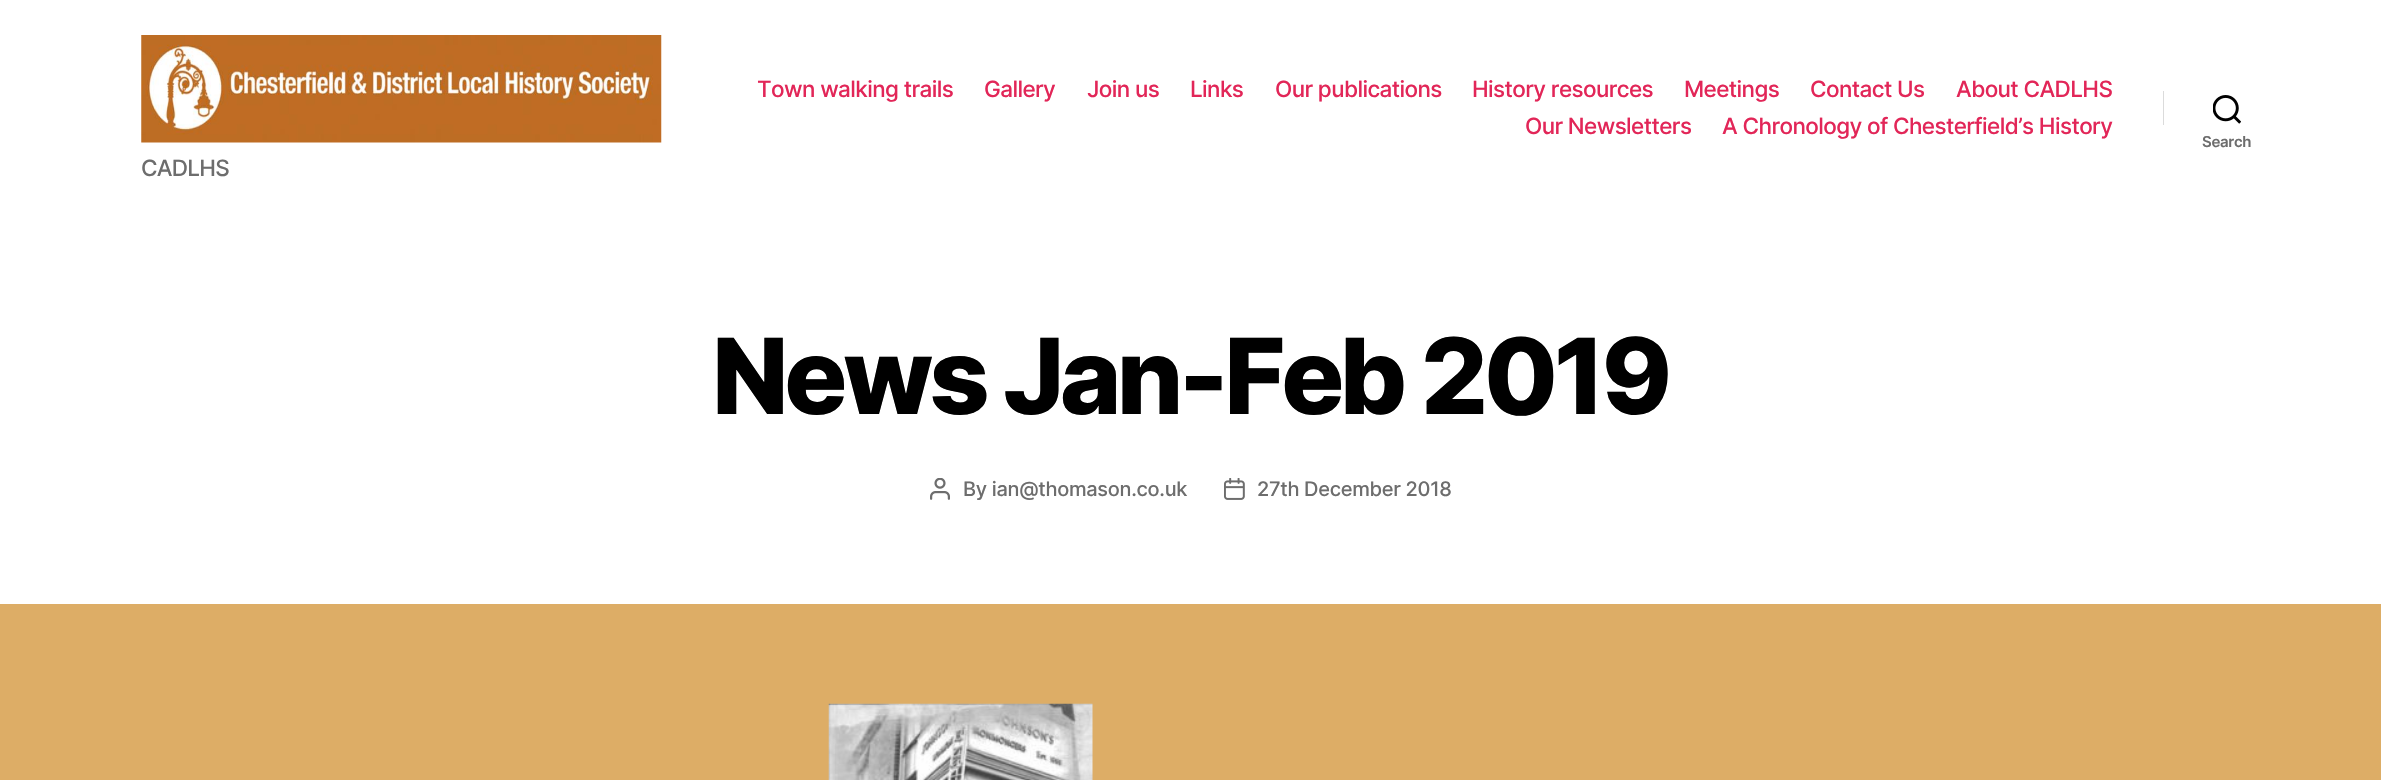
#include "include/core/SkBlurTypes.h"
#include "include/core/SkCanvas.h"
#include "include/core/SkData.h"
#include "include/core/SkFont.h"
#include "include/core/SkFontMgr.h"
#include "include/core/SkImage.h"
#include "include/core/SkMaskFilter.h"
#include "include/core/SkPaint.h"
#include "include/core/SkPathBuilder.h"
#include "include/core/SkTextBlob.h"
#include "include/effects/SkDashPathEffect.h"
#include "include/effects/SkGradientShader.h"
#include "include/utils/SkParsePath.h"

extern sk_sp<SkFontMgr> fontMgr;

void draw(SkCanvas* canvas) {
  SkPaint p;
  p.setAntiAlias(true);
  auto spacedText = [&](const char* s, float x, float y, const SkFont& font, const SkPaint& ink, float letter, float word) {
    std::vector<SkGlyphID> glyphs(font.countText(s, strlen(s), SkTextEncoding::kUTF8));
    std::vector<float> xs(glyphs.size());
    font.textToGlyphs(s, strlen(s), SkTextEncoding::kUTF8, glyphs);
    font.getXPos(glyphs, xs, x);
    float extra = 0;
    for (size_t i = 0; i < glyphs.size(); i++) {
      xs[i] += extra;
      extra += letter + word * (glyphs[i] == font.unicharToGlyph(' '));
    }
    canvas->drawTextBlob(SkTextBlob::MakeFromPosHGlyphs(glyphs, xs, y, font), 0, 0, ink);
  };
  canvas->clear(SkColorSetRGB(221, 173, 102));
  p.setColor(SK_ColorWHITE);
  canvas->drawRect(SkRect::MakeLTRB(0, 0, 2381, 604), p);
  p.setColor(SkColorSetRGB(219, 219, 219));
  canvas->drawRect(SkRect::MakeLTRB(2163, 91, 2164, 125), p);
  canvas->drawImageRect(SkImages::DeferredFromEncodedData(SkData::MakeFromFileName("images/1.png")), SkRect::MakeLTRB(2213, 95, 2241, 124), SkSamplingOptions());
  canvas->drawImageRect(SkImages::DeferredFromEncodedData(SkData::MakeFromFileName("images/2.png")), SkRect::MakeLTRB(141, 35, 662, 143), SkSamplingOptions());
  canvas->drawImageRect(SkImages::DeferredFromEncodedData(SkData::MakeFromFileName("images/3.png")), SkRect::MakeLTRB(930, 478, 950, 500), SkSamplingOptions());
  canvas->drawImageRect(SkImages::DeferredFromEncodedData(SkData::MakeFromFileName("images/4.png")), SkRect::MakeLTRB(1224, 478, 1245, 500), SkSamplingOptions());
  canvas->drawImageRect(SkImages::DeferredFromEncodedData(SkData::MakeFromFileName("images/5.png")), SkRect::MakeLTRB(828, 703, 1093, 780), SkSamplingOptions());
  SkFont font1(fontMgr->matchFamilyStyle("Inter", SkFontStyle(500, SkFontStyle::kNormal_Width, SkFontStyle::kUpright_Slant)), 22.5f);
  font1.setSubpixel(true);
  p.setColor(SkColorSetRGB(226, 38, 88));
  spacedText("Town walking trails", 757, 97, font1, p, -0.6f, 0);
  spacedText("Gallery", 984, 97, font1, p, -0.6f, 0);
  spacedText("Join us", 1087, 97, font1, p, -0.6f, 0);
  spacedText("Links", 1190, 97, font1, p, -0.6f, 0);
  spacedText("Our publications", 1275, 97, font1, p, -0.6f, 0);
  spacedText("History resources", 1472, 97, font1, p, -0.6f, 0);
  spacedText("Meetings", 1684, 97, font1, p, -0.6f, 0);
  spacedText("Contact Us", 1810, 97, font1, p, -0.6f, 0);
  spacedText("About CADLHS", 1956, 97, font1, p, -0.6f, 0);
  spacedText("Our Newsletters", 1525, 134, font1, p, -0.6f, 0);
  spacedText("A Chronology of Chesterfield’s History", 1722, 134, font1, p, -0.6f, 0);
  SkFont font2(fontMgr->matchFamilyStyle("Inter", SkFontStyle(600, SkFontStyle::kNormal_Width, SkFontStyle::kUpright_Slant)), 15);
  font2.setSubpixel(true);
  p.setColor(SkColorSetRGB(109, 109, 109));
  spacedText("Search", 2202, 147, font2, p, -0.3f, 0);
  spacedText("CADLHS", 141, 176, font1, p, -0.75f, 0);
  SkFont font3(fontMgr->matchFamilyStyle("Inter", SkFontStyle(800, SkFontStyle::kNormal_Width, SkFontStyle::kUpright_Slant)), 105);
  font3.setSubpixel(true);
  p.setColor(SK_ColorBLACK);
  spacedText("News Jan-Feb 2019", 712, 414, font3, p, -4.4f, 0);
  SkFont font4(fontMgr->matchFamilyStyle("Inter", SkFontStyle(500, SkFontStyle::kNormal_Width, SkFontStyle::kUpright_Slant)), 20);
  font4.setSubpixel(true);
  p.setColor(SkColorSetRGB(109, 109, 109));
  spacedText("By ian@thomason.co.uk", 963, 496, font4, p, -0.3f, 0);
  spacedText("27th December 2018", 1257, 496, font4, p, -0.3f, 0);
}
